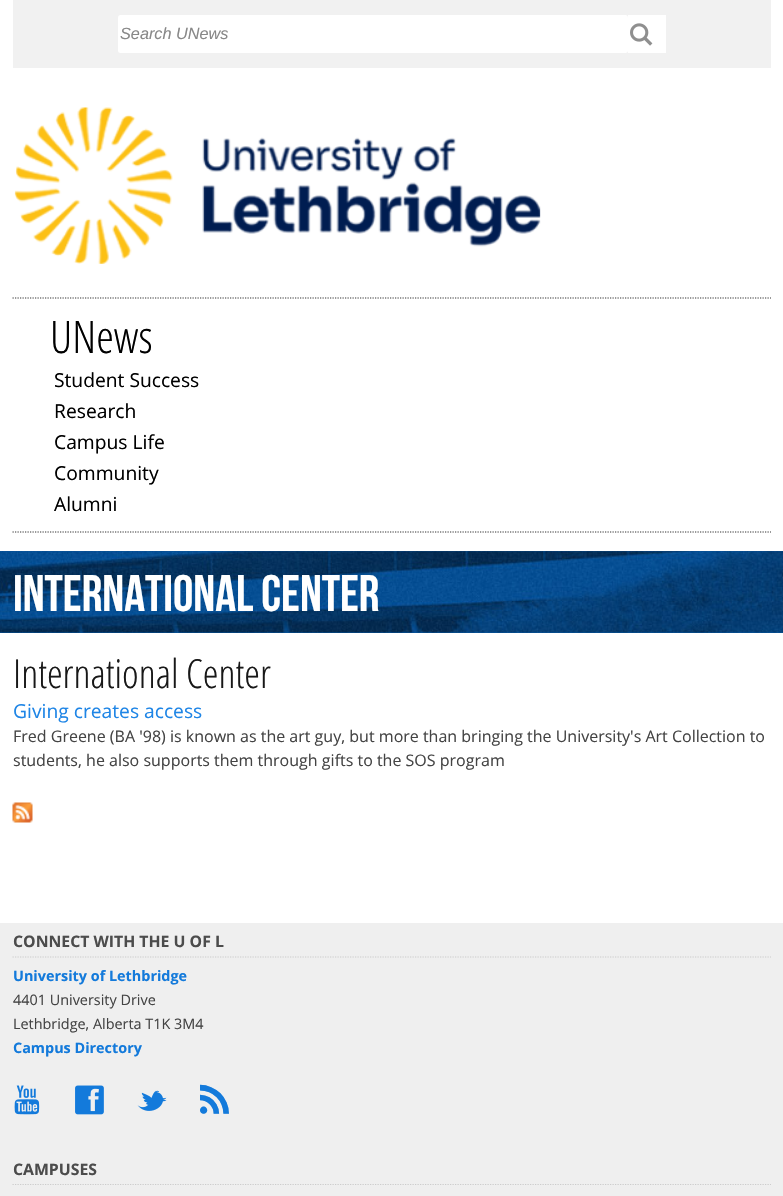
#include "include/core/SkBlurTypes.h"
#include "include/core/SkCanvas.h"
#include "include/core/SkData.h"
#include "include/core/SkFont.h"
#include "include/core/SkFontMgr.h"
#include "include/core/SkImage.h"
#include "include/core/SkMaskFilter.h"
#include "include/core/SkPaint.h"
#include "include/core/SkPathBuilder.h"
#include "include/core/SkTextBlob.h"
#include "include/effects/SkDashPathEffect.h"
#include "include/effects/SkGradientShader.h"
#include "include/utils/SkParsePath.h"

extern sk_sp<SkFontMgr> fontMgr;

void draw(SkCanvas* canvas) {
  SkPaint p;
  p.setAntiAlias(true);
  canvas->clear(SK_ColorWHITE);
  p.setColor(SkColorSetRGB(241, 241, 241));
  canvas->drawRect(SkRect::MakeLTRB(13, 0, 771, 68), p);
  p.setColor(SK_ColorWHITE);
  canvas->drawRoundRect(SkRect::MakeLTRB(118, 15, 628, 53), 2.5f, 2.5f, p);
  canvas->drawRect(SkRect::MakeLTRB(628, 15, 666, 53), p);
  canvas->drawImageRect(SkImages::DeferredFromEncodedData(SkData::MakeFromFileName("images/1.png")), SkRect::MakeLTRB(630, 23, 653, 46), SkSamplingOptions());
  canvas->drawImageRect(SkImages::DeferredFromEncodedData(SkData::MakeFromFileName("images/2.png")), SkRect::MakeLTRB(14, 107, 541, 264), SkSamplingOptions());
  p.setStyle(SkPaint::kStroke_Style);
  p.setStrokeWidth(1.2f);
  p.setColor(SkColorSetRGB(51, 51, 51));
  p.setPathEffect(SkDashPathEffect::Make({{1.25f, 1.25f}}, 0));
  canvas->drawPath(SkPathBuilder().moveTo(12.5f, 298).lineTo(771, 298).detach(), p);
  p.setPathEffect(nullptr);
  p.setPathEffect(SkDashPathEffect::Make({{1.25f, 1.25f}}, 0));
  canvas->drawPath(SkPathBuilder().moveTo(12.5f, 532).lineTo(771, 532).detach(), p);
  p.setPathEffect(nullptr);
  p.setStyle(SkPaint::kFill_Style);
  p.setColor(SkColorSetRGB(6, 85, 158));
  canvas->drawRect(SkRect::MakeLTRB(0, 551, 783, 633), p);
  canvas->drawImageRect(SkImages::DeferredFromEncodedData(SkData::MakeFromFileName("images/3.png")), SkRect::MakeLTRB(0, 551, 783, 633), SkSamplingOptions());
  canvas->drawImageRect(SkImages::DeferredFromEncodedData(SkData::MakeFromFileName("images/4.png")), SkRect::MakeLTRB(12, 802, 33, 823), SkSamplingOptions());
  p.setColor(SkColorSetRGB(239, 239, 239));
  canvas->drawRect(SkRect::MakeLTRB(0, 923, 783, 1196), p);
  p.setStyle(SkPaint::kStroke_Style);
  p.setColor(SkColorSetRGB(204, 204, 204));
  p.setPathEffect(SkDashPathEffect::Make({{1.25f, 1.25f}}, 0));
  canvas->drawPath(SkPathBuilder().moveTo(12.5f, 957).lineTo(771, 957).detach(), p);
  p.setPathEffect(nullptr);
  canvas->drawImageRect(SkImages::DeferredFromEncodedData(SkData::MakeFromFileName("images/5.png")), SkRect::MakeLTRB(14, 1085, 40, 1115), SkSamplingOptions());
  canvas->drawImageRect(SkImages::DeferredFromEncodedData(SkData::MakeFromFileName("images/6.png")), SkRect::MakeLTRB(75, 1085, 104, 1115), SkSamplingOptions());
  canvas->drawImageRect(SkImages::DeferredFromEncodedData(SkData::MakeFromFileName("images/7.png")), SkRect::MakeLTRB(137, 1090, 167, 1111), SkSamplingOptions());
  p.setPathEffect(SkDashPathEffect::Make({{1.25f, 1.25f}}, 0));
  canvas->drawPath(SkPathBuilder().moveTo(12.5f, 1184.5f).lineTo(771, 1184.5f).detach(), p);
  p.setPathEffect(nullptr);
  SkFont font1(fontMgr->matchFamilyStyle("Liberation Sans", SkFontStyle::Italic()), 16.25f);
  font1.setSubpixel(true);
  p.setStyle(SkPaint::kFill_Style);
  p.setColor(SkColorSetRGB(136, 136, 136));
  canvas->drawString("Search UNews", 120, 39, font1, p);
  SkFont font2(fontMgr->matchFamilyStyle("Open Sans", SkFontStyle(300, SkFontStyle::kNormal_Width, SkFontStyle::kUpright_Slant)), 45);
  font2.setSubpixel(true);
  p.setColor(SK_ColorBLACK);
  canvas->drawString("UNews", 50, 353, font2, p);
  SkFont font3(fontMgr->matchFamilyStyle("Open Sans", SkFontStyle::Normal()), 19.25f);
  font3.setSubpixel(true);
  canvas->drawString("Student Success", 54, 387, font3, p);
  canvas->drawString("Research", 54, 418, font3, p);
  canvas->drawString("Campus Life", 54, 449, font3, p);
  canvas->drawString("Community", 54, 480, font3, p);
  canvas->drawString("Alumni", 54, 511, font3, p);
  SkFont font4(fontMgr->matchFamilyStyle("Bebas Neue", SkFontStyle::Normal()), 51.25f);
  font4.setSubpixel(true);
  p.setColor(SK_ColorWHITE);
  canvas->drawString("International Center", 13, 611, font4, p);
  SkFont font5(fontMgr->matchFamilyStyle("Open Sans", SkFontStyle(300, SkFontStyle::kNormal_Width, SkFontStyle::kUpright_Slant)), 40);
  font5.setSubpixel(true);
  p.setColor(SkColorSetRGB(24, 24, 24));
  canvas->drawString("International Center", 13, 688, font5, p);
  p.setColor(SkColorSetRGB(30, 133, 230));
  canvas->drawString("Giving creates access", 13, 718, font3, p);
  SkFont font6(fontMgr->matchFamilyStyle("Open Sans", SkFontStyle::Normal()), 16);
  font6.setSubpixel(true);
  p.setColor(SkColorSetRGB(68, 68, 68));
  canvas->drawString("Fred Greene (BA '98) is known as the art guy, but more than bringing the University's Art Collection to", 13, 742, font6, p);
  canvas->drawString("students, he also supports them through gifts to the SOS program", 13, 766, font6, p);
  SkFont font7(fontMgr->matchFamilyStyle("Open Sans", SkFontStyle::Bold()), 15.8f);
  font7.setSubpixel(true);
  p.setColor(SkColorSetRGB(76, 76, 76));
  canvas->drawString("CONNECT WITH THE U OF L", 13, 947, font7, p);
  SkFont font8(fontMgr->matchFamilyStyle("Open Sans", SkFontStyle::Bold()), 14.4f);
  font8.setSubpixel(true);
  p.setColor(SkColorSetRGB(19, 122, 219));
  canvas->drawString("University of Lethbridge", 13, 981, font8, p);
  SkFont font9(fontMgr->matchFamilyStyle("Open Sans", SkFontStyle::Normal()), 14.4f);
  font9.setSubpixel(true);
  p.setColor(SkColorSetRGB(68, 68, 68));
  canvas->drawString("4401 University Drive", 13, 1005, font9, p);
  canvas->drawString("Lethbridge, Alberta T1K 3M4", 13, 1029, font9, p);
  p.setColor(SkColorSetRGB(19, 122, 219));
  canvas->drawString("Campus Directory", 13, 1053, font8, p);
  SkFont font10(fontMgr->matchFamilyStyle("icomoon", SkFontStyle::Normal()), 29);
  font10.setSubpixel(true);
  canvas->drawString("⇱", 200, 1112, font10, p);
  p.setColor(SkColorSetRGB(76, 76, 76));
  canvas->drawString("CAMPUSES", 13, 1175, font7, p);
}
